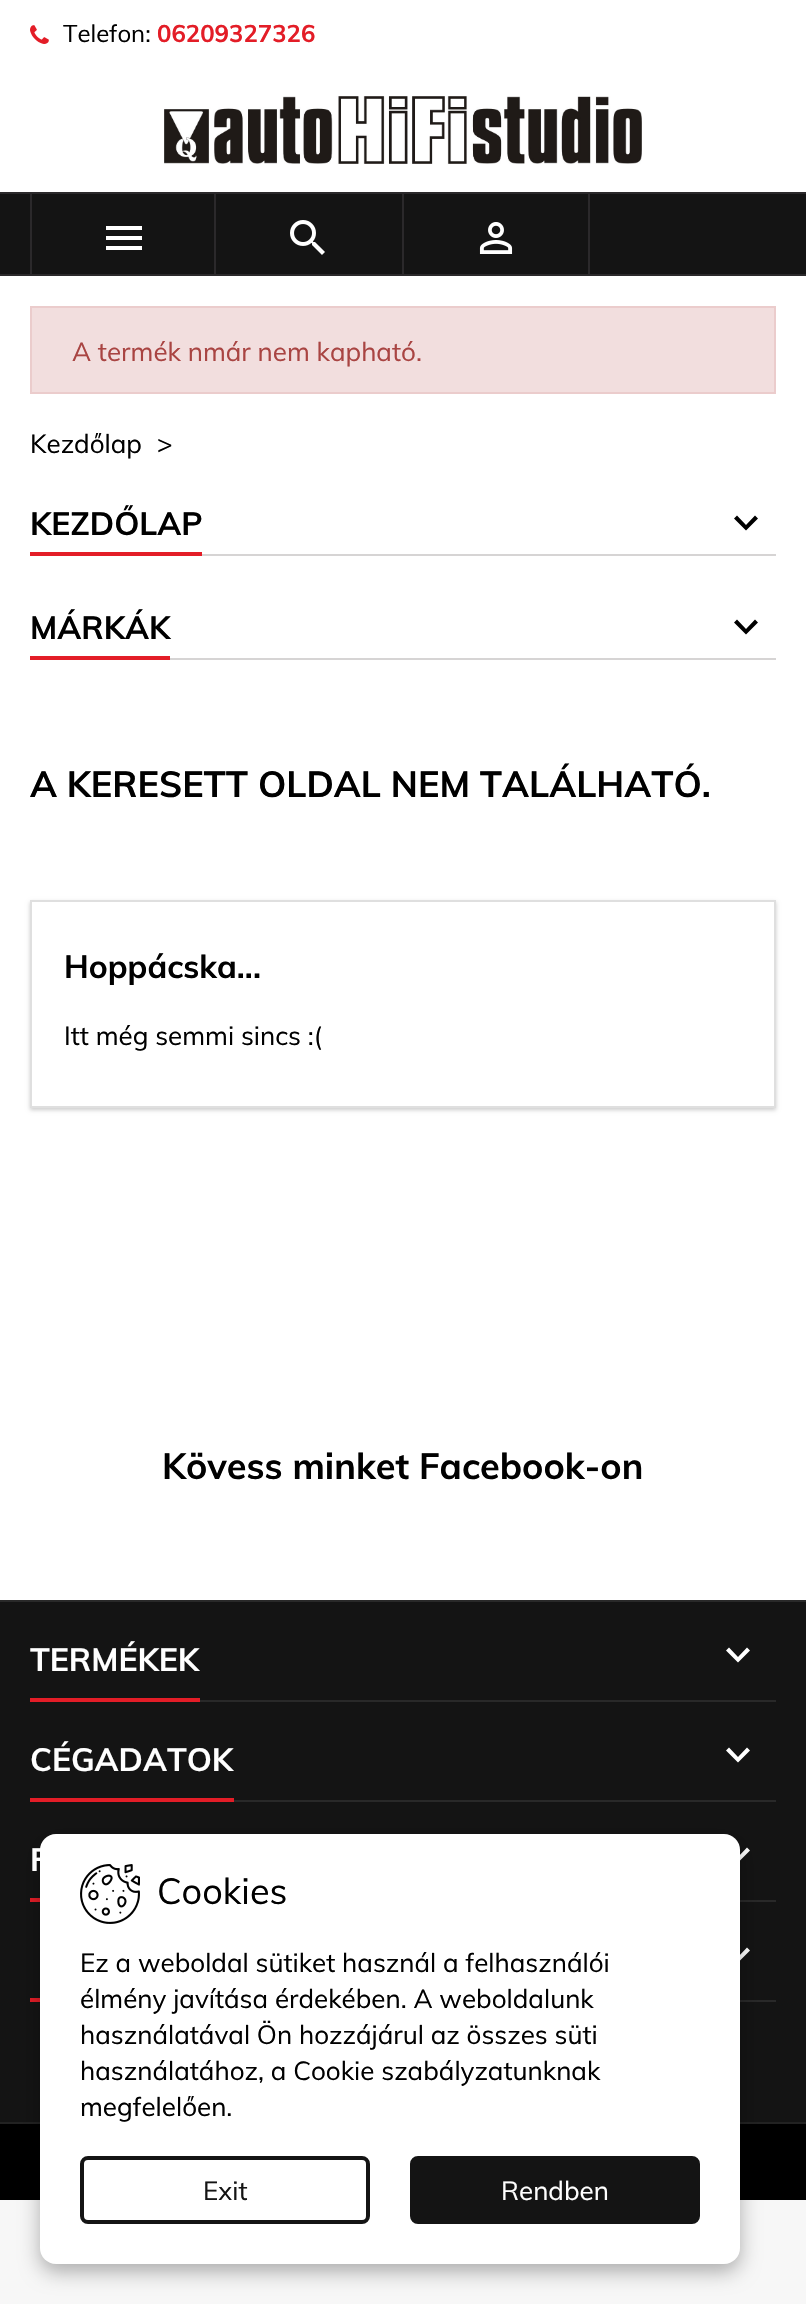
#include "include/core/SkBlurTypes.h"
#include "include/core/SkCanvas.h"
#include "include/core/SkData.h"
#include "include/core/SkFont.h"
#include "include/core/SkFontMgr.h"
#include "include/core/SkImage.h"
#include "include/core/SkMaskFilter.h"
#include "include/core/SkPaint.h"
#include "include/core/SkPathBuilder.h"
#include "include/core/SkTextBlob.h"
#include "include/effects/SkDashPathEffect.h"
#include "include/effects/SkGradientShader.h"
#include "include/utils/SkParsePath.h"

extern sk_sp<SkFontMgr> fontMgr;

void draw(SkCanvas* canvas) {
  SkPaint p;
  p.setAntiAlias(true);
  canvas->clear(SkColorSetRGB(247, 247, 247));
  p.setColor(SK_ColorWHITE);
  canvas->drawRect(SkRect::MakeLTRB(0, 0, 806, 1600), p);
  canvas->drawImageRect(SkImages::DeferredFromEncodedData(SkData::MakeFromFileName("images/1.png")), SkRect::MakeLTRB(30, 25, 49, 44), SkSamplingOptions());
  canvas->drawImageRect(SkImages::DeferredFromEncodedData(SkData::MakeFromFileName("images/2.png")), SkRect::MakeLTRB(164, 96, 642, 164), SkSamplingOptions());
  p.setColor(SkColorSetRGB(20, 20, 20));
  canvas->drawRect(SkRect::MakeLTRB(0, 194, 806, 274), p);
  p.setColor(SkColorSetRGB(43, 41, 43));
  canvas->drawRect(SkRect::MakeLTRB(0, 192, 806, 194), p);
  canvas->drawRect(SkRect::MakeLTRB(0, 274, 806, 276), p);
  canvas->drawRect(SkRect::MakeLTRB(214, 194, 216, 274), p);
  canvas->drawRect(SkRect::MakeLTRB(30, 194, 32, 274), p);
  p.setColor(SK_ColorWHITE);
  canvas->drawPath(SkPathBuilder().moveTo(106, 226).lineTo(142, 226).lineTo(142, 230).lineTo(106, 230).close().moveTo(106, 240).lineTo(106, 236).lineTo(142, 236).lineTo(142, 240).close().moveTo(106, 250).lineTo(106, 246).lineTo(142, 246).lineTo(142, 250).close().detach(), p);
  p.setColor(SkColorSetRGB(43, 41, 43));
  canvas->drawRect(SkRect::MakeLTRB(402, 194, 404, 274), p);
  canvas->drawImageRect(SkImages::DeferredFromEncodedData(SkData::MakeFromFileName("images/3.png")), SkRect::MakeLTRB(290, 220, 325, 255), SkSamplingOptions());
  canvas->drawRect(SkRect::MakeLTRB(588, 194, 590, 274), p);
  canvas->drawImageRect(SkImages::DeferredFromEncodedData(SkData::MakeFromFileName("images/4.png")), SkRect::MakeLTRB(479, 222, 513, 254), SkSamplingOptions());
  p.setColor(SkColorSetRGB(242, 222, 222));
  canvas->drawRect(SkRect::MakeLTRB(31, 307, 775, 393), p);
  p.setStyle(SkPaint::kStroke_Style);
  p.setStrokeWidth(2);
  p.setColor(SkColorSetRGB(235, 204, 204));
  canvas->drawRect(SkRect::MakeLTRB(31, 307, 775, 393), p);
  p.setStyle(SkPaint::kFill_Style);
  p.setColor(SkColorSetRGB(214, 212, 212));
  canvas->drawRect(SkRect::MakeLTRB(202, 554, 776, 556), p);
  p.setColor(SkColorSetRGB(227, 29, 39));
  canvas->drawRect(SkRect::MakeLTRB(30, 552, 202, 556), p);
  p.setColor(SK_ColorBLACK);
  canvas->drawPath(SkPathBuilder().moveTo(737, 515.5f).lineTo(746, 525).lineTo(755, 515.5f).lineTo(758, 518.5f).lineTo(746, 530.5f).lineTo(734, 518.5f).close().detach(), p);
  p.setColor(SkColorSetRGB(214, 212, 212));
  canvas->drawRect(SkRect::MakeLTRB(170, 658, 776, 660), p);
  p.setColor(SkColorSetRGB(227, 29, 39));
  canvas->drawRect(SkRect::MakeLTRB(30, 656, 170, 660), p);
  p.setColor(SK_ColorBLACK);
  canvas->drawPath(SkPathBuilder().moveTo(737, 619.5f).lineTo(746, 629).lineTo(755, 619.5f).lineTo(758, 622.5f).lineTo(746, 634.5f).lineTo(734, 622.5f).close().detach(), p);
  canvas->save();
  canvas->clipPath(SkPathBuilder(SkPathFillType::kEvenOdd).moveTo(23, 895).lineTo(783, 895).lineTo(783, 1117).lineTo(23, 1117).close().moveTo(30, 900).lineTo(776, 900).lineTo(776, 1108).lineTo(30, 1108).close().detach(), true);
  p.setColor(SkColorSetARGB(51, 0, 0, 0));
  p.setMaskFilter(SkMaskFilter::MakeBlur(kNormal_SkBlurStyle, 2));
  canvas->drawRect(SkRect::MakeLTRB(30, 902, 776, 1110), p);
  p.setMaskFilter(nullptr);
  canvas->restore();
  p.setStyle(SkPaint::kStroke_Style);
  p.setColor(SkColorSetRGB(223, 223, 223));
  canvas->drawRect(SkRect::MakeLTRB(31, 901, 775, 1107), p);
  p.setStyle(SkPaint::kFill_Style);
  p.setColor(SkColorSetRGB(20, 20, 20));
  canvas->drawRect(SkRect::MakeLTRB(0, 1602, 806, 2122), p);
  p.setColor(SkColorSetRGB(41, 41, 41));
  canvas->drawRect(SkRect::MakeLTRB(0, 1600, 806, 1602), p);
  canvas->drawRect(SkRect::MakeLTRB(200, 1700, 776, 1702), p);
  p.setColor(SkColorSetRGB(227, 29, 39));
  canvas->drawRect(SkRect::MakeLTRB(30, 1698, 200, 1702), p);
  p.setColor(SK_ColorWHITE);
  canvas->drawPath(SkPathBuilder().moveTo(729, 1647.5f).lineTo(738, 1657).lineTo(747, 1647.5f).lineTo(750, 1650.5f).lineTo(738, 1662.5f).lineTo(726, 1650.5f).close().detach(), p);
  p.setColor(SkColorSetRGB(41, 41, 41));
  canvas->drawRect(SkRect::MakeLTRB(234, 1800, 776, 1802), p);
  p.setColor(SkColorSetRGB(227, 29, 39));
  canvas->drawRect(SkRect::MakeLTRB(30, 1798, 234, 1802), p);
  p.setColor(SK_ColorWHITE);
  canvas->drawPath(SkPathBuilder().moveTo(729, 1747.5f).lineTo(738, 1757).lineTo(747, 1747.5f).lineTo(750, 1750.5f).lineTo(738, 1762.5f).lineTo(726, 1750.5f).close().detach(), p);
  p.setColor(SkColorSetRGB(41, 41, 41));
  canvas->drawRect(SkRect::MakeLTRB(740, 1900, 776, 1902), p);
  p.setColor(SkColorSetRGB(227, 29, 39));
  canvas->drawRect(SkRect::MakeLTRB(30, 1898, 40, 1902), p);
  p.setColor(SK_ColorWHITE);
  canvas->drawPath(SkPathBuilder().moveTo(729, 1847.5f).lineTo(738, 1857).lineTo(747, 1847.5f).lineTo(750, 1850.5f).lineTo(738, 1862.5f).lineTo(726, 1850.5f).close().detach(), p);
  p.setColor(SkColorSetRGB(41, 41, 41));
  canvas->drawRect(SkRect::MakeLTRB(740, 2000, 776, 2002), p);
  p.setColor(SK_ColorWHITE);
  canvas->drawPath(SkPathBuilder().moveTo(729, 1947.5f).lineTo(738, 1957).lineTo(747, 1947.5f).lineTo(750, 1950.5f).lineTo(738, 1962.5f).lineTo(726, 1950.5f).close().detach(), p);
  p.setColor(SkColorSetRGB(227, 29, 39));
  canvas->drawRect(SkRect::MakeLTRB(30, 1998, 40, 2002), p);
  p.setColor(SK_ColorBLACK);
  canvas->drawRect(SkRect::MakeLTRB(0, 2124, 806, 2200), p);
  p.setColor(SkColorSetRGB(34, 34, 34));
  canvas->drawRect(SkRect::MakeLTRB(0, 2122, 806, 2124), p);
  p.setColor(SkColorSetARGB(77, 0, 0, 0));
  p.setMaskFilter(SkMaskFilter::MakeBlur(kNormal_SkBlurStyle, 10));
  canvas->drawRoundRect(SkRect::MakeLTRB(40, 1842, 740, 2272), 16, 16, p);
  p.setMaskFilter(nullptr);
  p.setColor(SK_ColorWHITE);
  canvas->drawRoundRect(SkRect::MakeLTRB(40, 1834, 740, 2264), 16, 16, p);
  canvas->drawImageRect(SkImages::DeferredFromEncodedData(SkData::MakeFromFileName("images/5.png")), SkRect::MakeLTRB(80, 1864, 140, 1924), SkSamplingOptions());
  p.setStyle(SkPaint::kStroke_Style);
  p.setStrokeWidth(4);
  p.setColor(SkColorSetRGB(20, 20, 20));
  canvas->drawRoundRect(SkRect::MakeLTRB(82, 2158, 368, 2222), 6, 6, p);
  p.setStyle(SkPaint::kFill_Style);
  canvas->drawRoundRect(SkRect::MakeLTRB(412, 2158, 698, 2222), 6, 6, p);
  p.setStyle(SkPaint::kStroke_Style);
  canvas->drawRoundRect(SkRect::MakeLTRB(412, 2158, 698, 2222), 6, 6, p);
  SkFont font1(fontMgr->matchFamilyStyle("Muli", SkFontStyle::Normal()), 24);
  font1.setSubpixel(true);
  p.setStyle(SkPaint::kFill_Style);
  p.setColor(SK_ColorBLACK);
  canvas->drawString("Telefon:", 63, 42, font1, p);
  SkFont font2(fontMgr->matchFamilyStyle("Muli", SkFontStyle::Bold()), 24);
  font2.setSubpixel(true);
  p.setColor(SkColorSetRGB(227, 29, 39));
  canvas->drawString("06209327326", 157, 42, font2, p);
  SkFont font3(fontMgr->matchFamilyStyle("Muli", SkFontStyle::Normal()), 26);
  font3.setSubpixel(true);
  p.setColor(SkColorSetRGB(169, 68, 66));
  canvas->drawString("A termék nmár nem kapható.", 72, 361, font3, p);
  p.setColor(SK_ColorBLACK);
  canvas->drawString("Kezdőlap", 30, 453, font3, p);
  canvas->drawString(">", 157, 453, font3, p);
  SkFont font4(fontMgr->matchFamilyStyle("Muli", SkFontStyle::Bold()), 32);
  font4.setSubpixel(true);
  canvas->drawString("KEZDŐLAP", 30, 535, font4, p);
  canvas->drawString("MÁRKÁK", 30, 639, font4, p);
  SkFont font5(fontMgr->matchFamilyStyle("Muli", SkFontStyle::Bold()), 36);
  font5.setSubpixel(true);
  canvas->drawString("A KERESETT OLDAL NEM TALÁLHATÓ.", 30, 797, font5, p);
  canvas->drawString("Hoppácska...", 64, 978, font4, p);
  canvas->drawString("Itt még semmi sincs :(", 64, 1045, font3, p);
  canvas->drawString("Kövess minket Facebook-on", 162, 1479, font5, p);
  p.setColor(SK_ColorWHITE);
  canvas->drawString("TERMÉKEK", 30, 1671, font4, p);
  canvas->drawString("CÉGADATOK", 30, 1771, font4, p);
  canvas->drawString("F", 30, 1871, font4, p);
  SkFont font6(fontMgr->matchFamilyStyle("Muli", SkFontStyle::Normal()), 36);
  font6.setSubpixel(true);
  p.setColor(SK_ColorBLACK);
  canvas->drawString("Cookies", 157, 1904, font6, p);
  canvas->drawString("Ez a weboldal sütiket használ a felhasználói", 80, 1972, font3, p);
  canvas->drawString("élmény javítása érdekében. A weboldalunk", 80, 2008, font3, p);
  canvas->drawString("használatával Ön hozzájárul az összes süti", 80, 2044, font3, p);
  canvas->drawString("használatához, a Cookie szabályzatunknak", 80, 2080, font3, p);
  canvas->drawString("megfelelően.", 80, 2116, font3, p);
  p.setColor(SkColorSetRGB(20, 20, 20));
  canvas->drawString("Exit", 203, 2200, font3, p);
  p.setColor(SK_ColorWHITE);
  canvas->drawString("Rendben", 501, 2200, font3, p);
}
